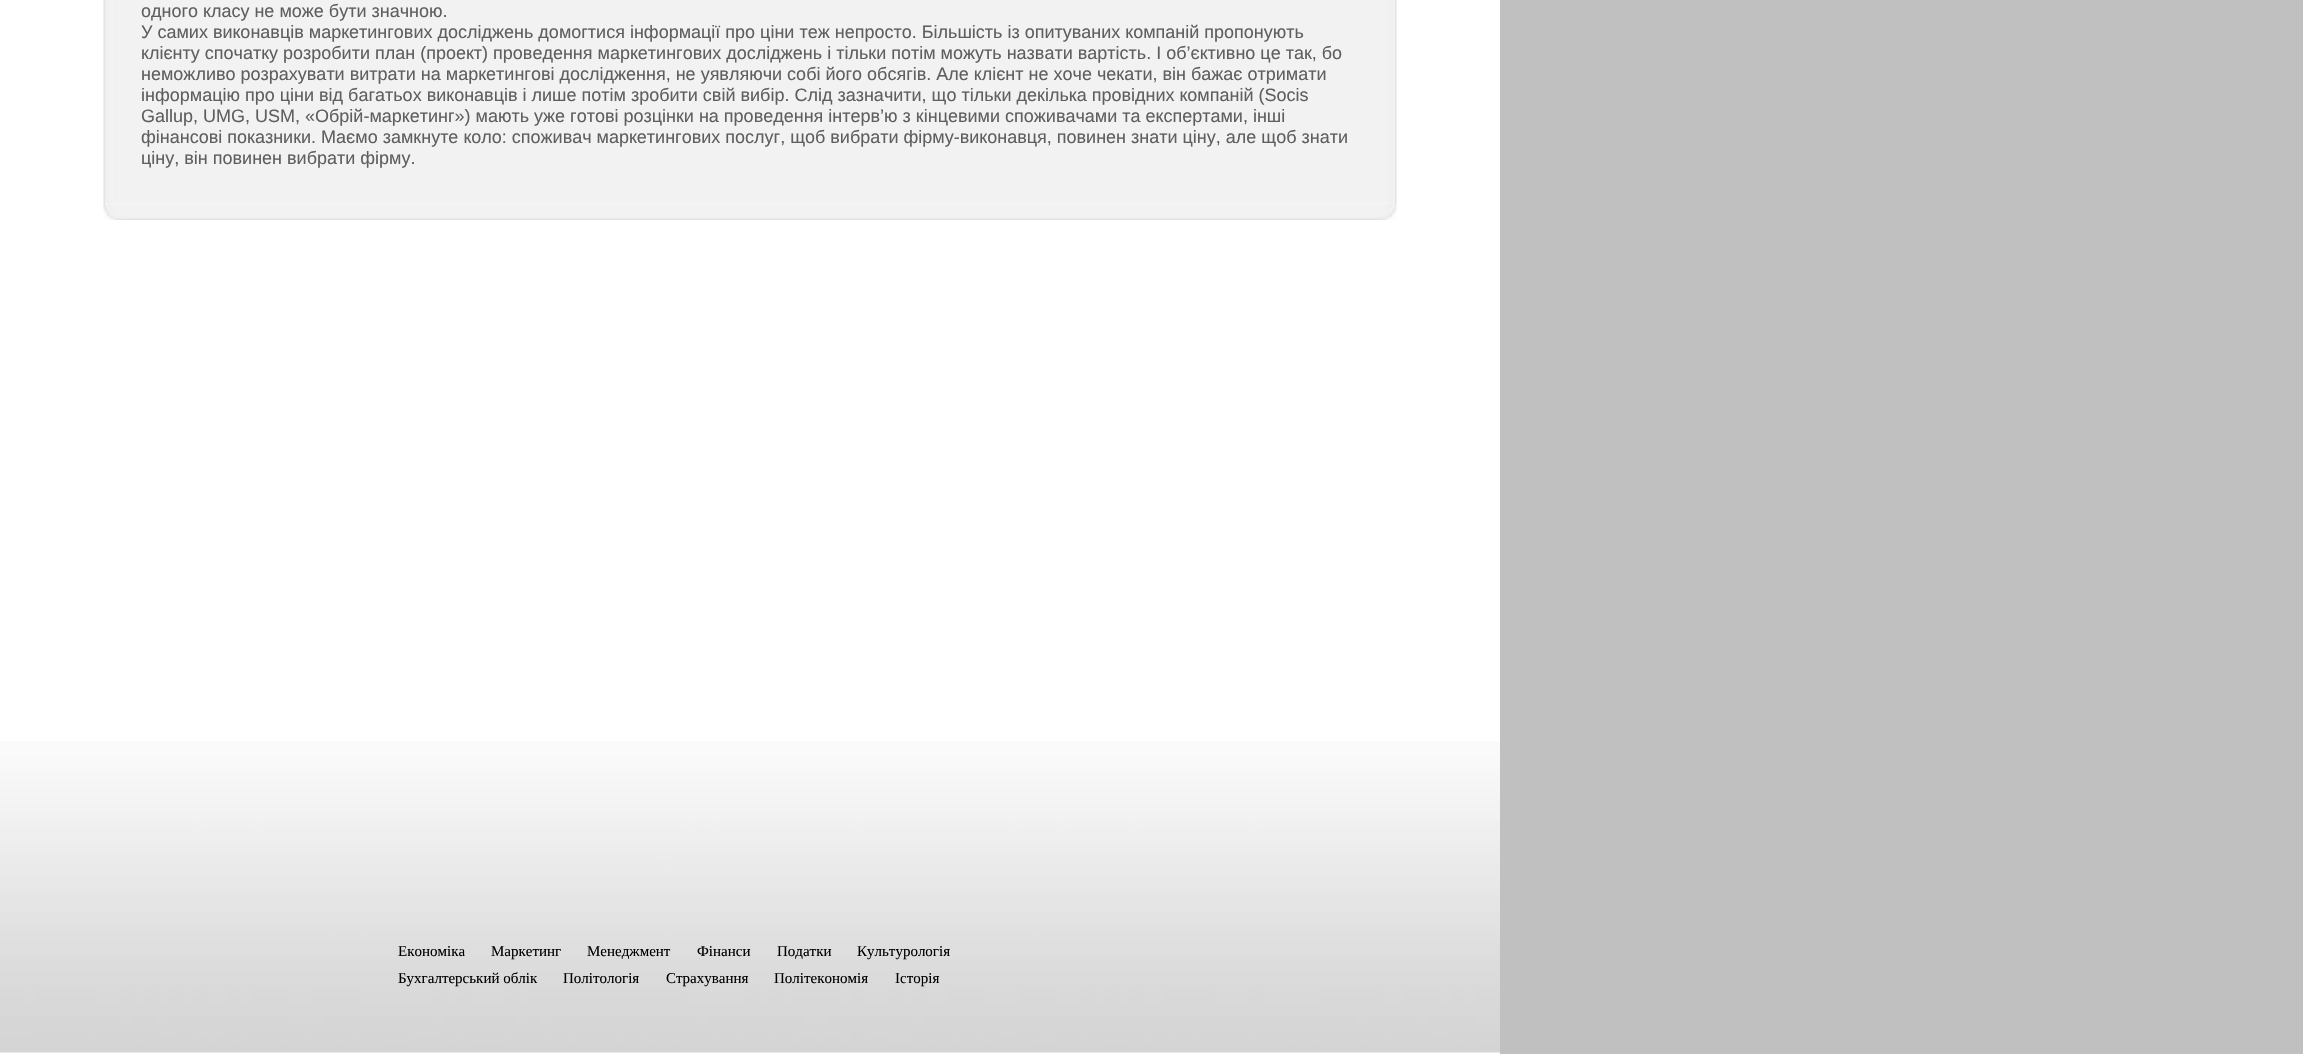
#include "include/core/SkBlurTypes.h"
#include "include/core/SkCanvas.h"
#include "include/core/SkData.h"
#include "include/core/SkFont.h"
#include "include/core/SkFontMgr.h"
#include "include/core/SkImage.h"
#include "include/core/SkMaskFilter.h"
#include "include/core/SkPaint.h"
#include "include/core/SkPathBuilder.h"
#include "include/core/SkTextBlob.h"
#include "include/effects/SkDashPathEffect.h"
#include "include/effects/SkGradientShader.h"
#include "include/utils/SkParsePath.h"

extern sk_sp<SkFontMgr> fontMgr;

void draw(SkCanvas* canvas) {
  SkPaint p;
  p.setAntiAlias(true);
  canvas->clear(SkColorSetRGB(192, 192, 192));
  p.setColor(SK_ColorWHITE);
  canvas->drawRect(SkRect::MakeLTRB(0, 0, 1500, 1054), p);
  canvas->drawImageRect(SkImages::DeferredFromEncodedData(SkData::MakeFromFileName("images/1.png")), SkRect::MakeLTRB(0, 741, 1500, 1053), SkSamplingOptions());
  canvas->drawImageRect(SkImages::DeferredFromEncodedData(SkData::MakeFromFileName("images/2.png")), SkRect::MakeLTRB(103, 0, 1397, 204), SkSamplingOptions());
  canvas->drawImageRect(SkImages::DeferredFromEncodedData(SkData::MakeFromFileName("images/3.png")), SkRect::MakeLTRB(103, 203, 1397, 220), SkSamplingOptions());
  SkFont font1(fontMgr->matchFamilyStyle("Liberation Sans", SkFontStyle::Normal()), 18);
  font1.setSubpixel(true);
  p.setColor(SkColorSetRGB(95, 95, 95));
  canvas->drawString("одного класу не може бути значною.", 141, 17, font1, p);
  canvas->drawString("У самих виконавців маркетингових досліджень домогтися інформації про ціни теж непросто. Більшість із опитуваних компаній пропонують", 141, 38, font1, p);
  canvas->drawString("клієнту спочатку розробити план (проект) проведення маркетингових досліджень і тільки потім можуть назвати вартість. І об’єктивно це так, бо", 141, 59, font1, p);
  canvas->drawString("неможливо розрахувати витрати на маркетингові дослідження, не уявляючи собі його обсягів. Але клієнт не хоче чекати, він бажає отримати", 141, 80, font1, p);
  canvas->drawString("інформацію про ціни від багатьох виконавців і лише потім зробити свій вибір. Слід зазначити, що тільки декілька провідних компаній (Socis", 141, 101, font1, p);
  canvas->drawString("Gallup, UMG, USM, «Обрій-маркетинг») мають уже готові розцінки на проведення інтерв’ю з кінцевими споживачами та експертами, інші", 141, 122, font1, p);
  canvas->drawString("фінансові показники. Маємо замкнуте коло: споживач маркетингових послуг, щоб вибрати фірму-виконавця, повинен знати ціну, але щоб знати", 141, 143, font1, p);
  canvas->drawString("ціну, він повинен вибрати фірму.", 141, 164, font1, p);
  SkFont font2(fontMgr->matchFamilyStyle("Liberation Serif", SkFontStyle::Normal()), 15);
  font2.setSubpixel(true);
  p.setColor(SK_ColorBLACK);
  canvas->drawString("Економіка", 398, 956, font2, p);
  canvas->drawString("Маркетинг", 491, 956, font2, p);
  canvas->drawString("Менеджмент", 587, 956, font2, p);
  canvas->drawString("Фінанси", 697, 956, font2, p);
  canvas->drawString("Податки", 777, 956, font2, p);
  canvas->drawString("Культурологія", 857, 956, font2, p);
  canvas->drawString("Бухгалтерський облік", 398, 983, font2, p);
  canvas->drawString("Політологія", 563, 983, font2, p);
  canvas->drawString("Страхування", 666, 983, font2, p);
  canvas->drawString("Політекономія", 774, 983, font2, p);
  canvas->drawString("Історія", 895, 983, font2, p);
}
